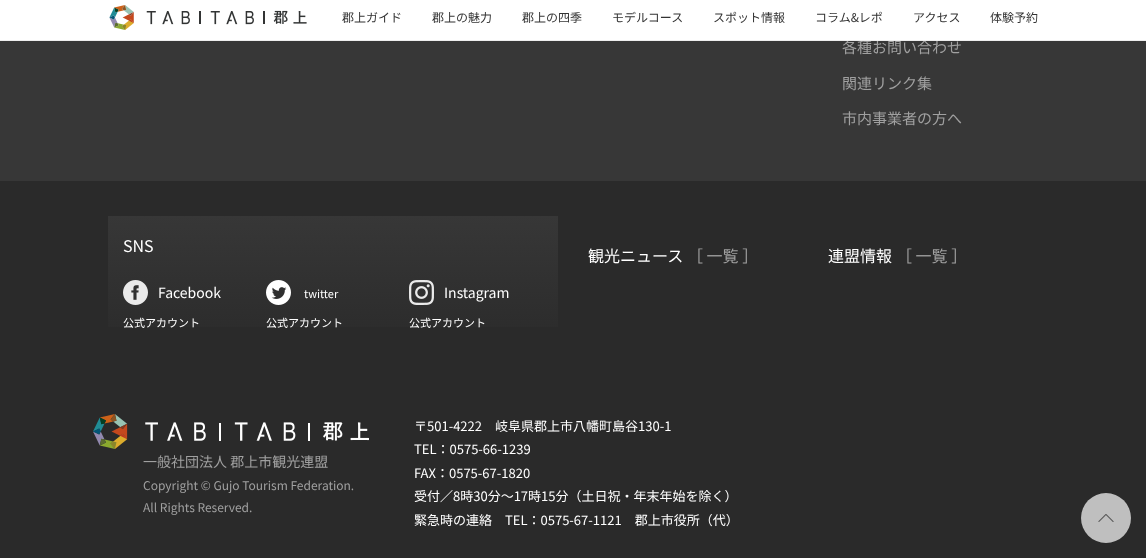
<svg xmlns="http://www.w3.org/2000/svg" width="1146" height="558">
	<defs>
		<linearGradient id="g1" gradientUnits="userSpaceOnUse" x1="333" y1="216" x2="333" y2="354"><stop offset="0" stop-color="#373737" /><stop offset="1" stop-color="#2A2A2A" /></linearGradient>
	</defs>
	<rect width="100%" height="100%" fill="#373737" />
	<text x="842" y="53" font-family="Noto Sans JP" font-size="15" fill="#A0A0A0">各種お問い合わせ</text>
	<rect x="0" y="40" width="1146" height="1" fill="#EEEEEE" />
	<rect x="0" y="0" width="1146" height="40" fill="#FFFFFF" />
	<image x="109" y="5" width="198" height="25" href="assets/img1.png" />
	<g font-family="Noto Sans JP" font-size="12" fill="#333333">
		<text x="342" y="22">郡上ガイド</text>
		<text x="432" y="22">郡上の魅力</text>
		<text x="522" y="22">郡上の四季</text>
		<text x="612" y="22">モデルコース</text>
		<text x="713" y="22">スポット情報</text>
		<text x="815" y="22">コラム&amp;レポ</text>
		<text x="913" y="22">アクセス</text>
		<text x="990" y="22">体験予約</text>
	</g>
	<g font-family="Noto Sans JP" font-size="15" fill="#A0A0A0">
		<text x="842" y="89">関連リンク集</text>
		<text x="842" y="124">市内事業者の方へ</text>
	</g>
	<rect x="0" y="181" width="1146" height="377" fill="#2A2A2A" />
	<rect x="108" y="216" width="450" height="111" fill="url(#g1)" />
	<text x="123" y="252" font-family="Noto Sans JP" font-size="16" fill="#FFFFFF">SNS</text>
	<image x="123" y="280" width="25" height="25" href="assets/img2.png" />
	<text x="158" y="298" font-family="Noto Sans JP" font-size="14" fill="#FFFFFF">Facebook</text>
	<text x="123" y="327" font-family="Noto Sans JP" font-size="11" fill="#FFFFFF">公式アカウント</text>
	<image x="266" y="280" width="25" height="25" href="assets/img3.png" />
	<g font-family="Noto Sans JP" font-size="11" fill="#FFFFFF">
		<text x="304" y="298">twitter</text>
		<text x="266" y="327">公式アカウント</text>
	</g>
	<image x="409" y="280" width="25" height="25" href="assets/img4.png" />
	<text x="444" y="298" font-family="Noto Sans JP" font-size="14" fill="#FFFFFF">Instagram</text>
	<text x="409" y="327" font-family="Noto Sans JP" font-size="11" fill="#FFFFFF">公式アカウント</text>
	<text x="588" y="262" font-family="Noto Sans JP" font-size="16" fill="#FFFFFF">観光ニュース</text>
	<text x="687" y="262" font-family="Noto Sans JP" font-size="16" fill="#A0A0A0">［ 一覧 ］</text>
	<text x="828" y="262" font-family="Noto Sans JP" font-size="16" fill="#FFFFFF">連盟情報</text>
	<text x="896" y="262" font-family="Noto Sans JP" font-size="16" fill="#A0A0A0">［ 一覧 ］</text>
	<image x="93" y="414" width="276" height="35" href="assets/img5.png" />
	<text x="143" y="467" font-family="Noto Sans JP" font-size="14" fill="#A0A0A0">一般社団法人 郡上市観光連盟</text>
	<g font-family="Noto Sans JP" font-size="12" fill="#A0A0A0">
		<text x="143" y="490">Copyright © Gujo Tourism Federation.</text>
		<text x="143" y="512">All Rights Reserved.</text>
	</g>
	<g font-family="Noto Sans JP" font-size="13" fill="#FFFFFF">
		<text x="414" y="431">〒501-4222　岐阜県郡上市八幡町島谷130-1</text>
		<text x="414" y="454">TEL：0575-66-1239</text>
		<text x="414" y="478">FAX：0575-67-1820</text>
		<text x="414" y="501">受付／8時30分～17時15分（土日祝・年末年始を除く）</text>
		<text x="414" y="525">緊急時の連絡　TEL：0575-67-1121　郡上市役所（代）</text>
	</g>
	<circle cx="1106" cy="518" r="25" fill="#BFBFBF" />
	<image x="1098" y="514" width="16" height="8" href="assets/img6.png" />
</svg>
